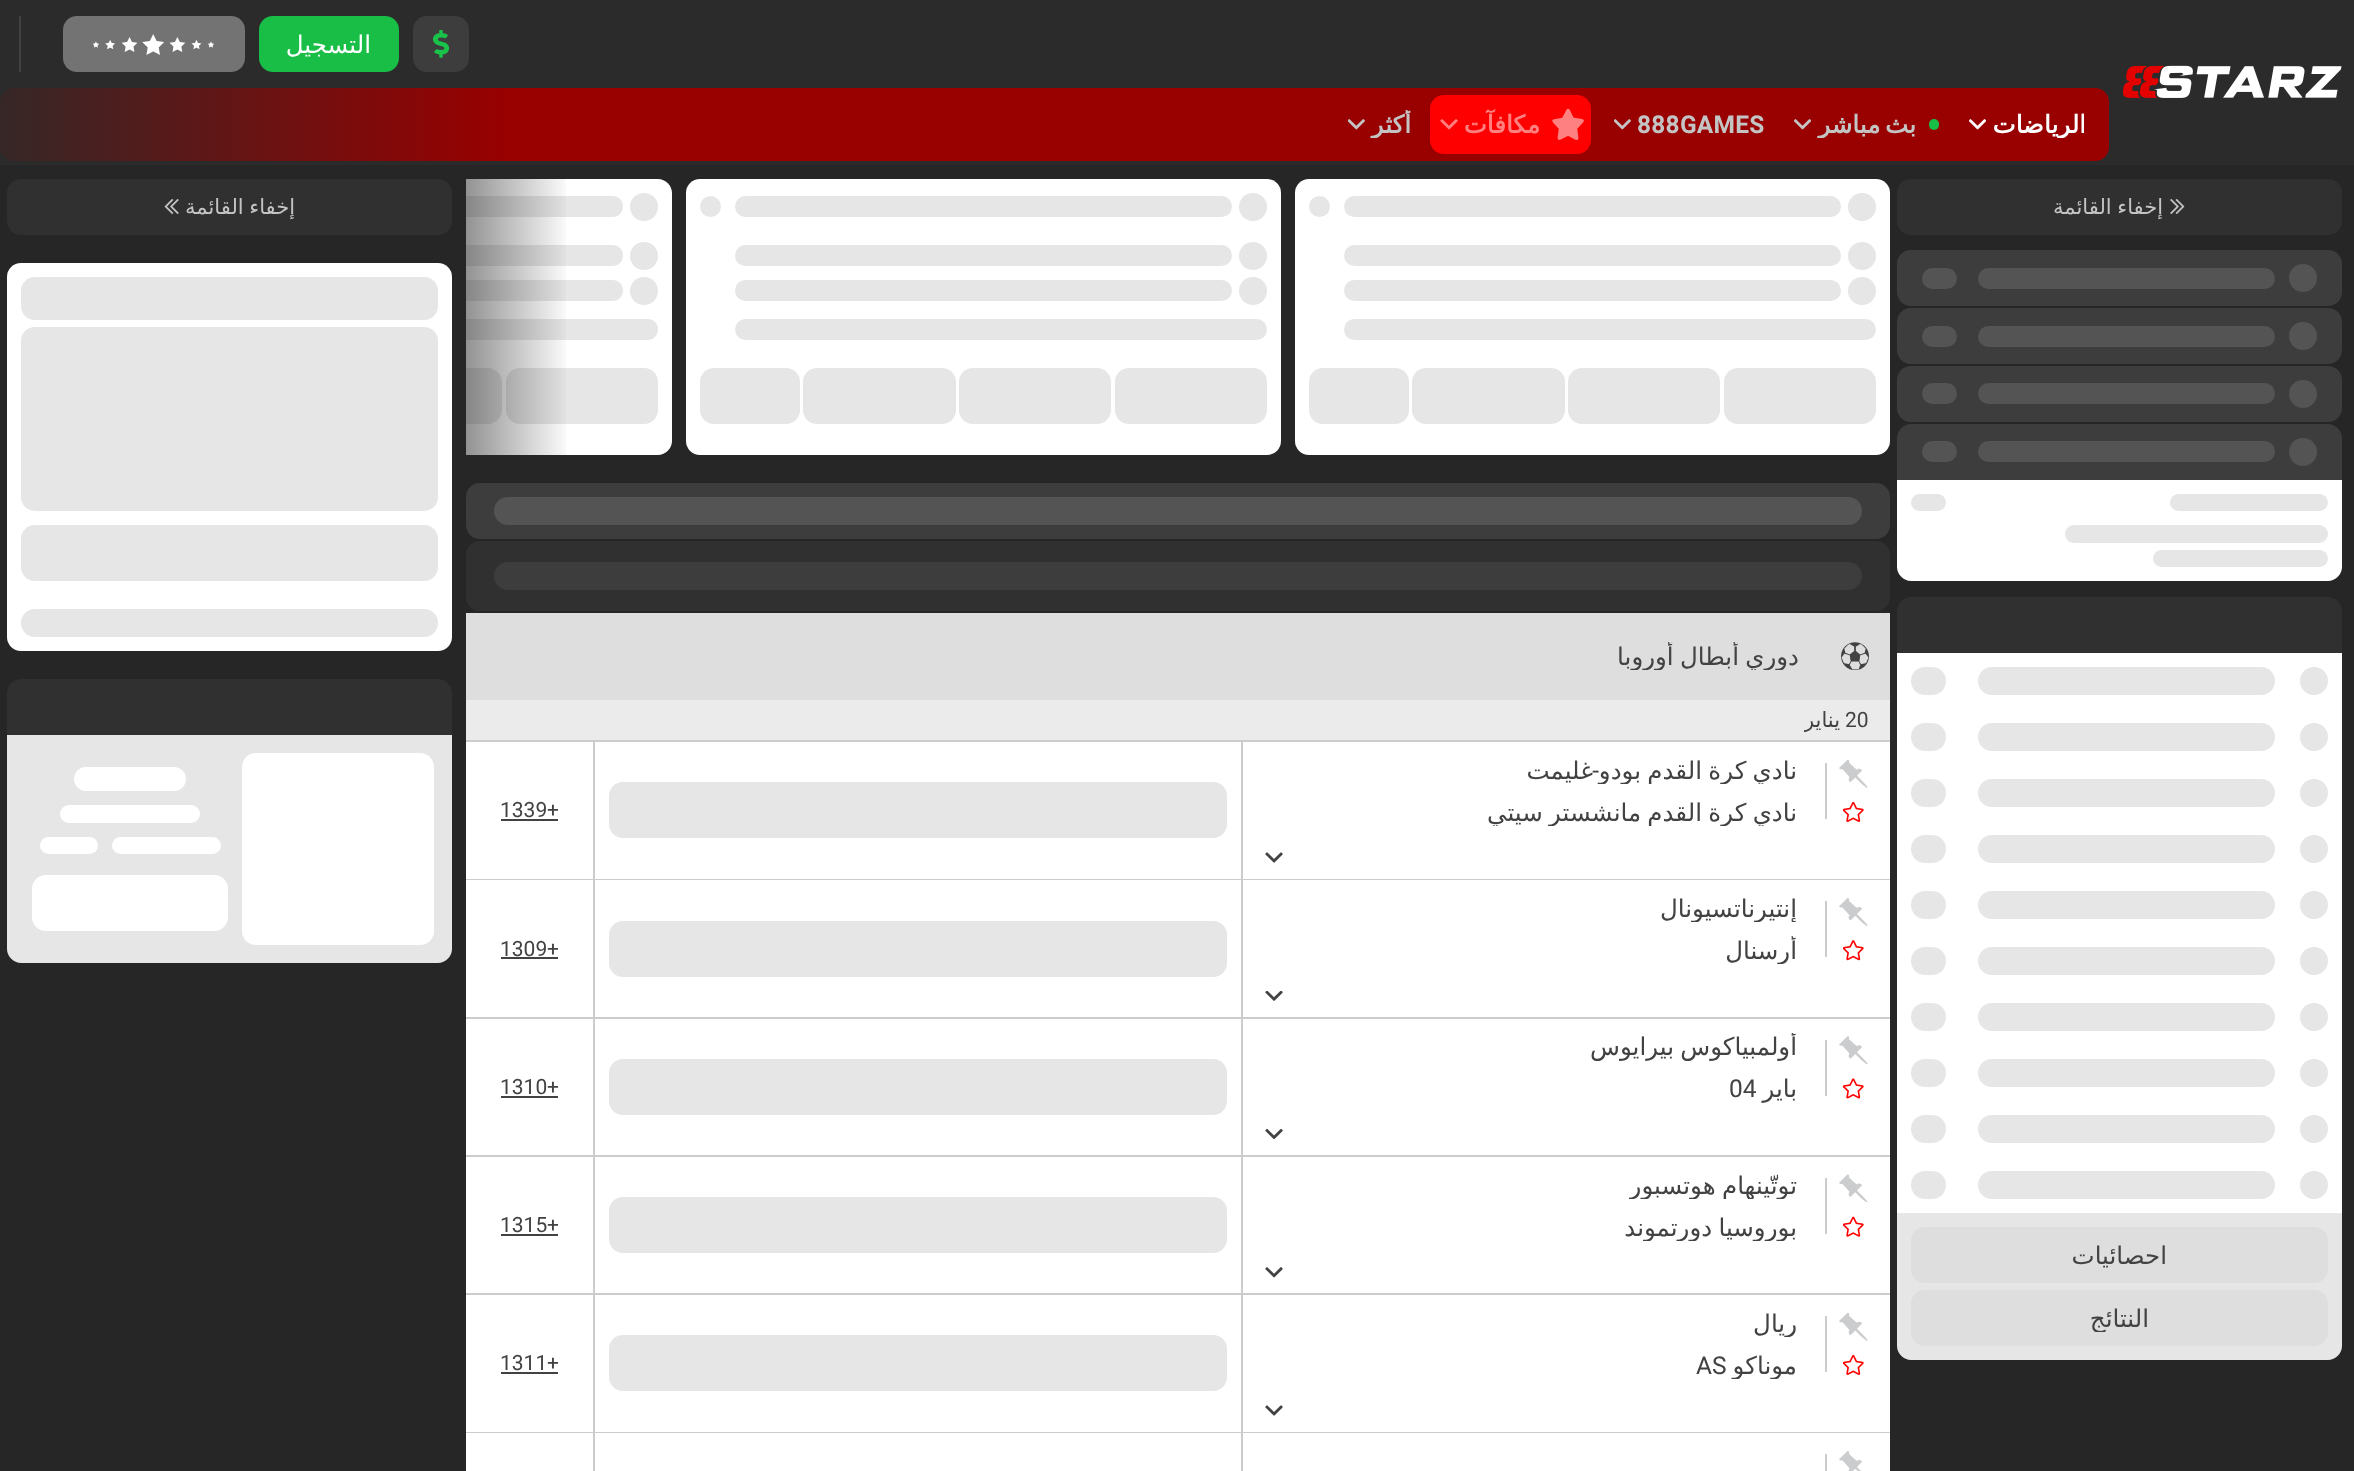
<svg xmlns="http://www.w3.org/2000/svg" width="2354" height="1471">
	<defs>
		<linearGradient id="g1" gradientUnits="userSpaceOnUse" x1="0" y1="124" x2="2109" y2="124"><stop offset="0" stop-color="#362727" /><stop offset="0.24" stop-color="#990000" /></linearGradient>
		<clipPath id="clip1"><rect x="1992" y="110" width="92" height="28" /></clipPath>
		<clipPath id="clip2"><rect x="1817" y="110" width="99" height="28" /></clipPath>
		<clipPath id="clip3"><rect x="1370" y="110" width="41" height="28" /></clipPath>
		<clipPath id="clip4"><rect x="2090" y="1304" width="59" height="28" /></clipPath>
		<linearGradient id="g2" gradientUnits="userSpaceOnUse" x1="571" y1="324" x2="466" y2="324"><stop offset="0" stop-color="#262626" stop-opacity="0" /><stop offset="1" stop-color="#262626" stop-opacity="0.5" /></linearGradient>
		<clipPath id="clip5"><rect x="1617" y="642" width="182" height="28" /></clipPath>
		<clipPath id="clip6"><rect x="1804" y="709" width="65" height="24" /></clipPath>
		<clipPath id="clip7"><rect x="1526" y="756" width="271" height="28" /></clipPath>
		<clipPath id="clip8"><rect x="1488" y="798" width="309" height="28" /></clipPath>
		<clipPath id="clip9"><rect x="1661" y="894" width="136" height="28" /></clipPath>
		<clipPath id="clip10"><rect x="1726" y="936" width="71" height="28" /></clipPath>
		<clipPath id="clip11"><rect x="1591" y="1033" width="206" height="28" /></clipPath>
		<clipPath id="clip12"><rect x="1629" y="1171" width="168" height="28" /></clipPath>
		<clipPath id="clip13"><rect x="1624" y="1213" width="173" height="28" /></clipPath>
		<clipPath id="clip14"><rect x="1754" y="1309" width="43" height="28" /></clipPath>
		<clipPath id="clip15"><rect x="1696" y="1351" width="101" height="28" /></clipPath>
	</defs>
	<rect width="100%" height="100%" fill="#262626" />
	<rect x="0" y="0" width="2354" height="165" fill="#2B2B2B" />
	<rect x="413" y="16" width="56" height="56" rx="14" fill="#3D3D3D" />
	<image x="432" y="30" width="17" height="28" href="assets/img1.png" />
	<rect x="259" y="16" width="140" height="56" rx="14" fill="#19BE47" />
	<text x="371" y="53" font-family="DejaVu Sans" font-size="24.5" direction="rtl" fill="#FFFFFF">التسجيل</text>
	<rect x="63" y="16" width="182" height="56" rx="14" fill="#737373" />
	<image x="92" y="34" width="123" height="21" href="assets/img2.png" />
	<rect x="19" y="16" width="2" height="56" fill="#424242" />
	<image x="2123" y="65" width="219" height="33" href="assets/img3.png" />
	<rect x="0" y="88" width="2109" height="73" rx="14" fill="url(#g1)" />
	<g clip-path="url(#clip1)">
		<text x="2086" y="133" font-family="DejaVu Sans" font-size="24.5" font-weight="700" letter-spacing="0.25" direction="rtl" fill="#FFFFFF">الرياضات</text>
	</g>
	<image x="1969" y="119" width="17" height="11" href="assets/img4.png" />
	<rect x="1929" y="119" width="10" height="11" rx="5" fill="#19BE47" />
	<g clip-path="url(#clip2)">
		<text x="1916" y="133" word-spacing="-3" font-family="DejaVu Sans" font-size="24.5" font-weight="700" letter-spacing="0.25" direction="rtl" fill="#C4C4C4">بث مباشر</text>
	</g>
	<image x="1794" y="119" width="17" height="11" href="assets/img5.png" />
	<text x="1637" y="133" font-family="Roboto" font-size="24.5" font-weight="700" letter-spacing="0.25" fill="#C4C4C4">888GAMES</text>
	<image x="1614" y="119" width="17" height="11" href="assets/img6.png" />
	<rect x="1430" y="95" width="161" height="59" rx="14" fill="#FF0000" />
	<image x="1552" y="109" width="32" height="31" href="assets/img7.png" />
	<text x="1540" y="133" font-family="DejaVu Sans" font-size="24.5" font-weight="700" letter-spacing="0.25" direction="rtl" fill="#FF8080">مكافآت</text>
	<image x="1440" y="119" width="18" height="11" href="assets/img8.png" />
	<g clip-path="url(#clip3)">
		<text x="1411" y="133" font-family="DejaVu Sans" font-size="24.5" font-weight="700" letter-spacing="0.25" direction="rtl" fill="#C4C4C4">أكثر</text>
	</g>
	<image x="1348" y="119" width="17" height="11" href="assets/img6.png" />
	<rect x="1897" y="179" width="445" height="56" rx="14" fill="#303030" />
	<image x="2170" y="199" width="15" height="15" href="assets/img9.png" />
	<text x="2163" y="214" word-spacing="-1" font-family="DejaVu Sans" font-size="21" direction="rtl" fill="#C4C4C4">إخفاء القائمة</text>
	<rect x="1897" y="250" width="445" height="56" rx="14" fill="#3D3D3D" />
	<circle cx="2303" cy="278" r="14" fill="#545454" />
	<rect x="1978" y="268" width="297" height="21" rx="10.5" fill="#545454" />
	<rect x="1922" y="268" width="35" height="21" rx="10.5" fill="#545454" />
	<rect x="1897" y="308" width="445" height="56" rx="14" fill="#3D3D3D" />
	<circle cx="2303" cy="336" r="14" fill="#545454" />
	<rect x="1978" y="326" width="297" height="21" rx="10.5" fill="#545454" />
	<rect x="1922" y="326" width="35" height="21" rx="10.5" fill="#545454" />
	<rect x="1897" y="366" width="445" height="56" rx="14" fill="#3D3D3D" />
	<circle cx="2303" cy="394" r="14" fill="#545454" />
	<rect x="1978" y="383" width="297" height="21" rx="10.5" fill="#545454" />
	<rect x="1922" y="383" width="35" height="21" rx="10.5" fill="#545454" />
	<path d="M1911 424H2328C2335.5 424 2342 430.5 2342 438V480H1897V438C1897 430.5 1903.5 424 1911 424Z" fill="#3D3D3D" />
	<circle cx="2303" cy="452" r="14" fill="#545454" />
	<rect x="1978" y="441" width="297" height="21" rx="10.5" fill="#545454" />
	<rect x="1922" y="441" width="35" height="21" rx="10.5" fill="#545454" />
	<path d="M1897 480H2342V567C2342 574.5 2335.5 581 2328 581H1911C1903.5 581 1897 574.5 1897 567Z" fill="#FFFFFF" />
	<rect x="2170" y="494" width="158" height="17" rx="8.5" fill="#E6E6E6" />
	<rect x="2065" y="525" width="263" height="18" rx="9" fill="#E6E6E6" />
	<rect x="2153" y="550" width="175" height="17" rx="8.5" fill="#E6E6E6" />
	<rect x="1911" y="494" width="35" height="17" rx="8.5" fill="#E6E6E6" />
	<path d="M1911 597H2328C2335.5 597 2342 603.5 2342 611V653H1897V611C1897 603.5 1903.5 597 1911 597Z" fill="#303030" />
	<rect x="1897" y="653" width="445" height="560" fill="#FFFFFF" />
	<circle cx="2314" cy="681" r="14" fill="#E6E6E6" />
	<rect x="1978" y="667" width="297" height="28" rx="14" fill="#E6E6E6" />
	<rect x="1911" y="667" width="35" height="28" rx="14" fill="#E6E6E6" />
	<circle cx="2314" cy="737" r="14" fill="#E6E6E6" />
	<rect x="1978" y="723" width="297" height="28" rx="14" fill="#E6E6E6" />
	<rect x="1911" y="723" width="35" height="28" rx="14" fill="#E6E6E6" />
	<circle cx="2314" cy="793" r="14" fill="#E6E6E6" />
	<rect x="1978" y="779" width="297" height="28" rx="14" fill="#E6E6E6" />
	<rect x="1911" y="779" width="35" height="28" rx="14" fill="#E6E6E6" />
	<circle cx="2314" cy="849" r="14" fill="#E6E6E6" />
	<rect x="1978" y="835" width="297" height="28" rx="14" fill="#E6E6E6" />
	<rect x="1911" y="835" width="35" height="28" rx="14" fill="#E6E6E6" />
	<circle cx="2314" cy="905" r="14" fill="#E6E6E6" />
	<rect x="1978" y="891" width="297" height="28" rx="14" fill="#E6E6E6" />
	<rect x="1911" y="891" width="35" height="28" rx="14" fill="#E6E6E6" />
	<circle cx="2314" cy="961" r="14" fill="#E6E6E6" />
	<rect x="1978" y="947" width="297" height="28" rx="14" fill="#E6E6E6" />
	<rect x="1911" y="947" width="35" height="28" rx="14" fill="#E6E6E6" />
	<circle cx="2314" cy="1017" r="14" fill="#E6E6E6" />
	<rect x="1978" y="1003" width="297" height="28" rx="14" fill="#E6E6E6" />
	<rect x="1911" y="1003" width="35" height="28" rx="14" fill="#E6E6E6" />
	<circle cx="2314" cy="1073" r="14" fill="#E6E6E6" />
	<rect x="1978" y="1059" width="297" height="28" rx="14" fill="#E6E6E6" />
	<rect x="1911" y="1059" width="35" height="28" rx="14" fill="#E6E6E6" />
	<circle cx="2314" cy="1129" r="14" fill="#E6E6E6" />
	<rect x="1978" y="1115" width="297" height="28" rx="14" fill="#E6E6E6" />
	<rect x="1911" y="1115" width="35" height="28" rx="14" fill="#E6E6E6" />
	<circle cx="2314" cy="1185" r="14" fill="#E6E6E6" />
	<rect x="1978" y="1171" width="297" height="28" rx="14" fill="#E6E6E6" />
	<rect x="1911" y="1171" width="35" height="28" rx="14" fill="#E6E6E6" />
	<path d="M1897 1213H2342V1346C2342 1353.5 2335.5 1360 2328 1360H1911C1903.5 1360 1897 1353.5 1897 1346Z" fill="#E6E6E6" />
	<rect x="1911" y="1227" width="417" height="56" rx="14" fill="#DEDEDE" />
	<text x="2167" y="1264" font-family="DejaVu Sans" font-size="24.5" direction="rtl" fill="#424242">احصائيات</text>
	<rect x="1911" y="1290" width="417" height="56" rx="14" fill="#DEDEDE" />
	<g clip-path="url(#clip4)">
		<text x="2149" y="1327" font-family="DejaVu Sans" font-size="24.5" direction="rtl" fill="#424242">النتائج</text>
	</g>
	<path d="M466 179H658C665.5 179 672 185.5 672 193V441C672 448.5 665.5 455 658 455H466Z" fill="#FFFFFF" />
	<circle cx="644" cy="207" r="14" fill="#E6E6E6" />
	<path d="M466 196H612.5C618.5 196 623 200.5 623 206.5C623 212.5 618.5 217 612.5 217H466Z" fill="#E6E6E6" />
	<circle cx="644" cy="256" r="14" fill="#E6E6E6" />
	<path d="M466 245H612.5C618.5 245 623 249.5 623 255.5C623 261.5 618.5 266 612.5 266H466Z" fill="#E6E6E6" />
	<circle cx="644" cy="291" r="14" fill="#E6E6E6" />
	<path d="M466 280H612.5C618.5 280 623 284.5 623 290.5C623 296.5 618.5 301 612.5 301H466Z" fill="#E6E6E6" />
	<path d="M466 319H647.5C653.5 319 658 323.5 658 329.5C658 335.5 653.5 340 647.5 340H466Z" fill="#E6E6E6" />
	<rect x="506" y="368" width="152" height="56" rx="14" fill="#E6E6E6" />
	<path d="M466 368H488C495.5 368 502 374.5 502 382V410C502 417.5 495.5 424 488 424H466Z" fill="#E6E6E6" />
	<rect x="1295" y="179" width="595" height="276" rx="14" fill="#FFFFFF" />
	<circle cx="1862" cy="207" r="14" fill="#E6E6E6" />
	<rect x="1344" y="196" width="497" height="21" rx="10.5" fill="#E6E6E6" />
	<circle cx="1862" cy="256" r="14" fill="#E6E6E6" />
	<rect x="1344" y="245" width="497" height="21" rx="10.5" fill="#E6E6E6" />
	<circle cx="1862" cy="291" r="14" fill="#E6E6E6" />
	<rect x="1344" y="280" width="497" height="21" rx="10.5" fill="#E6E6E6" />
	<circle cx="1319.5" cy="206.5" r="10.5" fill="#E6E6E6" />
	<rect x="1344" y="319" width="532" height="21" rx="10.5" fill="#E6E6E6" />
	<rect x="1724" y="368" width="152" height="56" rx="14" fill="#E6E6E6" />
	<rect x="1568" y="368" width="152" height="56" rx="14" fill="#E6E6E6" />
	<rect x="1412" y="368" width="153" height="56" rx="14" fill="#E6E6E6" />
	<rect x="1309" y="368" width="100" height="56" rx="14" fill="#E6E6E6" />
	<rect x="686" y="179" width="595" height="276" rx="14" fill="#FFFFFF" />
	<circle cx="1253" cy="207" r="14" fill="#E6E6E6" />
	<rect x="735" y="196" width="497" height="21" rx="10.5" fill="#E6E6E6" />
	<circle cx="1253" cy="256" r="14" fill="#E6E6E6" />
	<rect x="735" y="245" width="497" height="21" rx="10.5" fill="#E6E6E6" />
	<circle cx="1253" cy="291" r="14" fill="#E6E6E6" />
	<rect x="735" y="280" width="497" height="21" rx="10.5" fill="#E6E6E6" />
	<circle cx="710.5" cy="206.5" r="10.5" fill="#E6E6E6" />
	<rect x="735" y="319" width="532" height="21" rx="10.5" fill="#E6E6E6" />
	<rect x="1115" y="368" width="152" height="56" rx="14" fill="#E6E6E6" />
	<rect x="959" y="368" width="152" height="56" rx="14" fill="#E6E6E6" />
	<rect x="803" y="368" width="153" height="56" rx="14" fill="#E6E6E6" />
	<rect x="700" y="368" width="100" height="56" rx="14" fill="#E6E6E6" />
	<rect x="466" y="179" width="100" height="276" fill="url(#g2)" />
	<rect x="466" y="483" width="1424" height="56" rx="14" fill="#3D3D3D" />
	<rect x="494" y="497" width="1368" height="28" rx="14" fill="#545454" />
	<rect x="466" y="541" width="1424" height="70" rx="14" fill="#303030" />
	<rect x="494" y="562" width="1368" height="28" rx="14" fill="#3D3D3D" />
	<rect x="466" y="742" width="1424" height="690" fill="#FFFFFF" />
	<rect x="1276" y="613" width="614" height="87" fill="#DEDEDE" />
	<image x="1841" y="642" width="28" height="28" href="assets/img10.png" />
	<g clip-path="url(#clip5)">
		<text x="1799" y="665" word-spacing="-1.5" font-family="DejaVu Sans" font-size="24.5" direction="rtl" fill="#424242">دوري أبطال أوروبا</text>
	</g>
	<rect x="466" y="613" width="810" height="87" fill="#DEDEDE" />
	<rect x="466" y="700" width="1424" height="40" fill="#EBEBEB" />
	<rect x="466" y="740" width="1424" height="2" fill="#CBCCCD" />
	<text x="1845" y="727" font-family="Roboto" font-size="21" fill="#424242">20</text>
	<g clip-path="url(#clip6)">
		<text x="1840" y="727" font-family="DejaVu Sans" font-size="21" direction="rtl" fill="#424242">يناير</text>
	</g>
	<rect x="1243" y="879" width="647" height="1" fill="#CBCCCD" />
	<image x="1839" y="760" width="29" height="28" href="assets/img11.png" />
	<rect x="1825" y="763" width="2" height="56" fill="#CBCCCD" />
	<image x="1843" y="802" width="21" height="20" href="assets/img12.png" />
	<text x="1599" y="779" font-family="Roboto" font-size="24.5" direction="rtl" fill="#424242">-</text>
	<g clip-path="url(#clip7)">
		<text x="1797" y="779" word-spacing="-1.5" font-family="DejaVu Sans" font-size="24.5" direction="rtl" fill="#424242">نادي كرة القدم بودو</text>
	</g>
	<text x="1593" y="779" font-family="DejaVu Sans" font-size="24.5" direction="rtl" fill="#424242">غليمت</text>
	<g clip-path="url(#clip8)">
		<text x="1797" y="821" word-spacing="-1.5" font-family="DejaVu Sans" font-size="24.5" direction="rtl" fill="#424242">نادي كرة القدم مانشستر سيتي</text>
	</g>
	<image x="1265" y="852" width="18" height="11" href="assets/img13.png" />
	<rect x="1241" y="742" width="2" height="729" fill="#CBCCCD" />
	<rect x="595" y="879" width="648" height="1" fill="#CBCCCD" />
	<rect x="609" y="782" width="618" height="56" rx="14" fill="#E6E6E6" />
	<rect x="593" y="742" width="2" height="729" fill="#CBCCCD" />
	<rect x="466" y="879" width="129" height="1" fill="#CBCCCD" />
	<rect x="501" y="819" width="57" height="2" fill="#424242" />
	<g font-family="Roboto" font-size="21" fill="#424242">
		<text x="547" y="817">+</text>
		<text x="500" y="817">1339</text>
	</g>
	<rect x="466" y="1017" width="1424" height="2" fill="#CBCCCD" />
	<image x="1839" y="898" width="29" height="28" href="assets/img14.png" />
	<rect x="1825" y="901" width="2" height="56" fill="#CBCCCD" />
	<image x="1843" y="940" width="21" height="21" href="assets/img15.png" />
	<g clip-path="url(#clip9)">
		<text x="1797" y="917" font-family="DejaVu Sans" font-size="24.5" direction="rtl" fill="#424242">إنتيرناتسيونال</text>
	</g>
	<g clip-path="url(#clip10)">
		<text x="1797" y="959" font-family="DejaVu Sans" font-size="24.5" direction="rtl" fill="#424242">أرسنال</text>
	</g>
	<image x="1265" y="991" width="18" height="10" href="assets/img16.png" />
	<rect x="609" y="921" width="618" height="56" rx="14" fill="#E6E6E6" />
	<rect x="501" y="957" width="57" height="2" fill="#424242" />
	<g font-family="Roboto" font-size="21" fill="#424242">
		<text x="547" y="956">+</text>
		<text x="500" y="956">1309</text>
	</g>
	<rect x="466" y="1155" width="1424" height="2" fill="#CBCCCD" />
	<image x="1839" y="1036" width="29" height="28" href="assets/img17.png" />
	<rect x="1825" y="1040" width="2" height="56" fill="#CBCCCD" />
	<image x="1843" y="1078" width="21" height="21" href="assets/img18.png" />
	<g clip-path="url(#clip11)">
		<text x="1797" y="1055" word-spacing="-1.5" font-family="DejaVu Sans" font-size="24.5" direction="rtl" fill="#424242">أولمبياكوس بيرايوس</text>
	</g>
	<text x="1797" y="1097" font-family="DejaVu Sans" font-size="24.5" direction="rtl" fill="#424242">باير</text>
	<text x="1729" y="1097" font-family="Roboto" font-size="24.5" fill="#424242">04</text>
	<image x="1265" y="1129" width="18" height="10" href="assets/img19.png" />
	<rect x="609" y="1059" width="618" height="56" rx="14" fill="#E6E6E6" />
	<rect x="501" y="1096" width="57" height="2" fill="#424242" />
	<g font-family="Roboto" font-size="21" fill="#424242">
		<text x="547" y="1094">+</text>
		<text x="500" y="1094">1310</text>
	</g>
	<rect x="466" y="1293" width="1424" height="2" fill="#CBCCCD" />
	<image x="1839" y="1174" width="29" height="28" href="assets/img20.png" />
	<rect x="1825" y="1178" width="2" height="56" fill="#CBCCCD" />
	<image x="1843" y="1216" width="21" height="21" href="assets/img21.png" />
	<g clip-path="url(#clip12)">
		<text x="1797" y="1194" word-spacing="-1.5" font-family="DejaVu Sans" font-size="24.5" direction="rtl" fill="#424242">توتّينهام هوتسبور</text>
	</g>
	<g clip-path="url(#clip13)">
		<text x="1797" y="1236" word-spacing="-1.5" font-family="DejaVu Sans" font-size="24.5" direction="rtl" fill="#424242">بوروسيا دورتموند</text>
	</g>
	<image x="1265" y="1267" width="18" height="11" href="assets/img22.png" />
	<rect x="609" y="1197" width="618" height="56" rx="14" fill="#E6E6E6" />
	<rect x="501" y="1234" width="57" height="2" fill="#424242" />
	<g font-family="Roboto" font-size="21" fill="#424242">
		<text x="547" y="1232">+</text>
		<text x="500" y="1232">1315</text>
	</g>
	<rect x="466" y="1432" width="1424" height="1" fill="#CBCCCD" />
	<image x="1839" y="1313" width="29" height="28" href="assets/img11.png" />
	<rect x="1825" y="1316" width="2" height="56" fill="#CBCCCD" />
	<image x="1843" y="1355" width="21" height="20" href="assets/img12.png" />
	<g clip-path="url(#clip14)">
		<text x="1797" y="1332" font-family="DejaVu Sans" font-size="24.5" direction="rtl" fill="#424242">ريال</text>
	</g>
	<g clip-path="url(#clip15)">
		<text x="1797" y="1374" font-family="DejaVu Sans" font-size="24.5" direction="rtl" fill="#424242">موناكو</text>
	</g>
	<text x="1696" y="1374" font-family="Roboto" font-size="24.5" fill="#424242">AS</text>
	<image x="1265" y="1405" width="18" height="11" href="assets/img13.png" />
	<rect x="609" y="1335" width="618" height="56" rx="14" fill="#E6E6E6" />
	<rect x="501" y="1372" width="57" height="2" fill="#424242" />
	<g font-family="Roboto" font-size="21" fill="#424242">
		<text x="547" y="1370">+</text>
		<text x="500" y="1370">1311</text>
	</g>
	<rect x="1243" y="1433" width="647" height="38" fill="#FFFFFF" />
	<image x="1839" y="1451" width="23" height="20" href="assets/img23.png" />
	<rect x="1825" y="1454" width="2" height="17" fill="#CBCCCD" />
	<rect x="595" y="1433" width="646" height="38" fill="#FFFFFF" />
	<rect x="466" y="1433" width="127" height="38" fill="#FFFFFF" />
	<rect x="7" y="179" width="445" height="56" rx="14" fill="#303030" />
	<text x="295" y="214" word-spacing="-1" font-family="DejaVu Sans" font-size="21" direction="rtl" fill="#C4C4C4">إخفاء القائمة</text>
	<image x="164" y="199" width="15" height="15" href="assets/img24.png" />
	<rect x="7" y="263" width="445" height="388" rx="14" fill="#FFFFFF" />
	<rect x="21" y="277" width="417" height="43" rx="14" fill="#E6E6E6" />
	<rect x="21" y="327" width="417" height="184" rx="14" fill="#E6E6E6" />
	<rect x="21" y="525" width="417" height="56" rx="14" fill="#E6E6E6" />
	<rect x="21" y="609" width="417" height="28" rx="14" fill="#E6E6E6" />
	<path d="M21 679H438C445.5 679 452 685.5 452 693V735H7V693C7 685.5 13.5 679 21 679Z" fill="#303030" />
	<path d="M7 735H452V949C452 956.5 445.5 963 438 963H21C13.5 963 7 956.5 7 949Z" fill="#E6E6E6" />
	<rect x="242" y="753" width="192" height="192" rx="14" fill="#FFFFFF" />
	<rect x="74" y="767" width="112" height="24" rx="12" fill="#FFFFFF" />
	<rect x="60" y="805" width="140" height="18" rx="9" fill="#FFFFFF" />
	<rect x="112" y="837" width="109" height="17" rx="8.5" fill="#FFFFFF" />
	<rect x="40" y="837" width="58" height="17" rx="8.5" fill="#FFFFFF" />
	<rect x="32" y="875" width="196" height="56" rx="14" fill="#FFFFFF" />
</svg>
